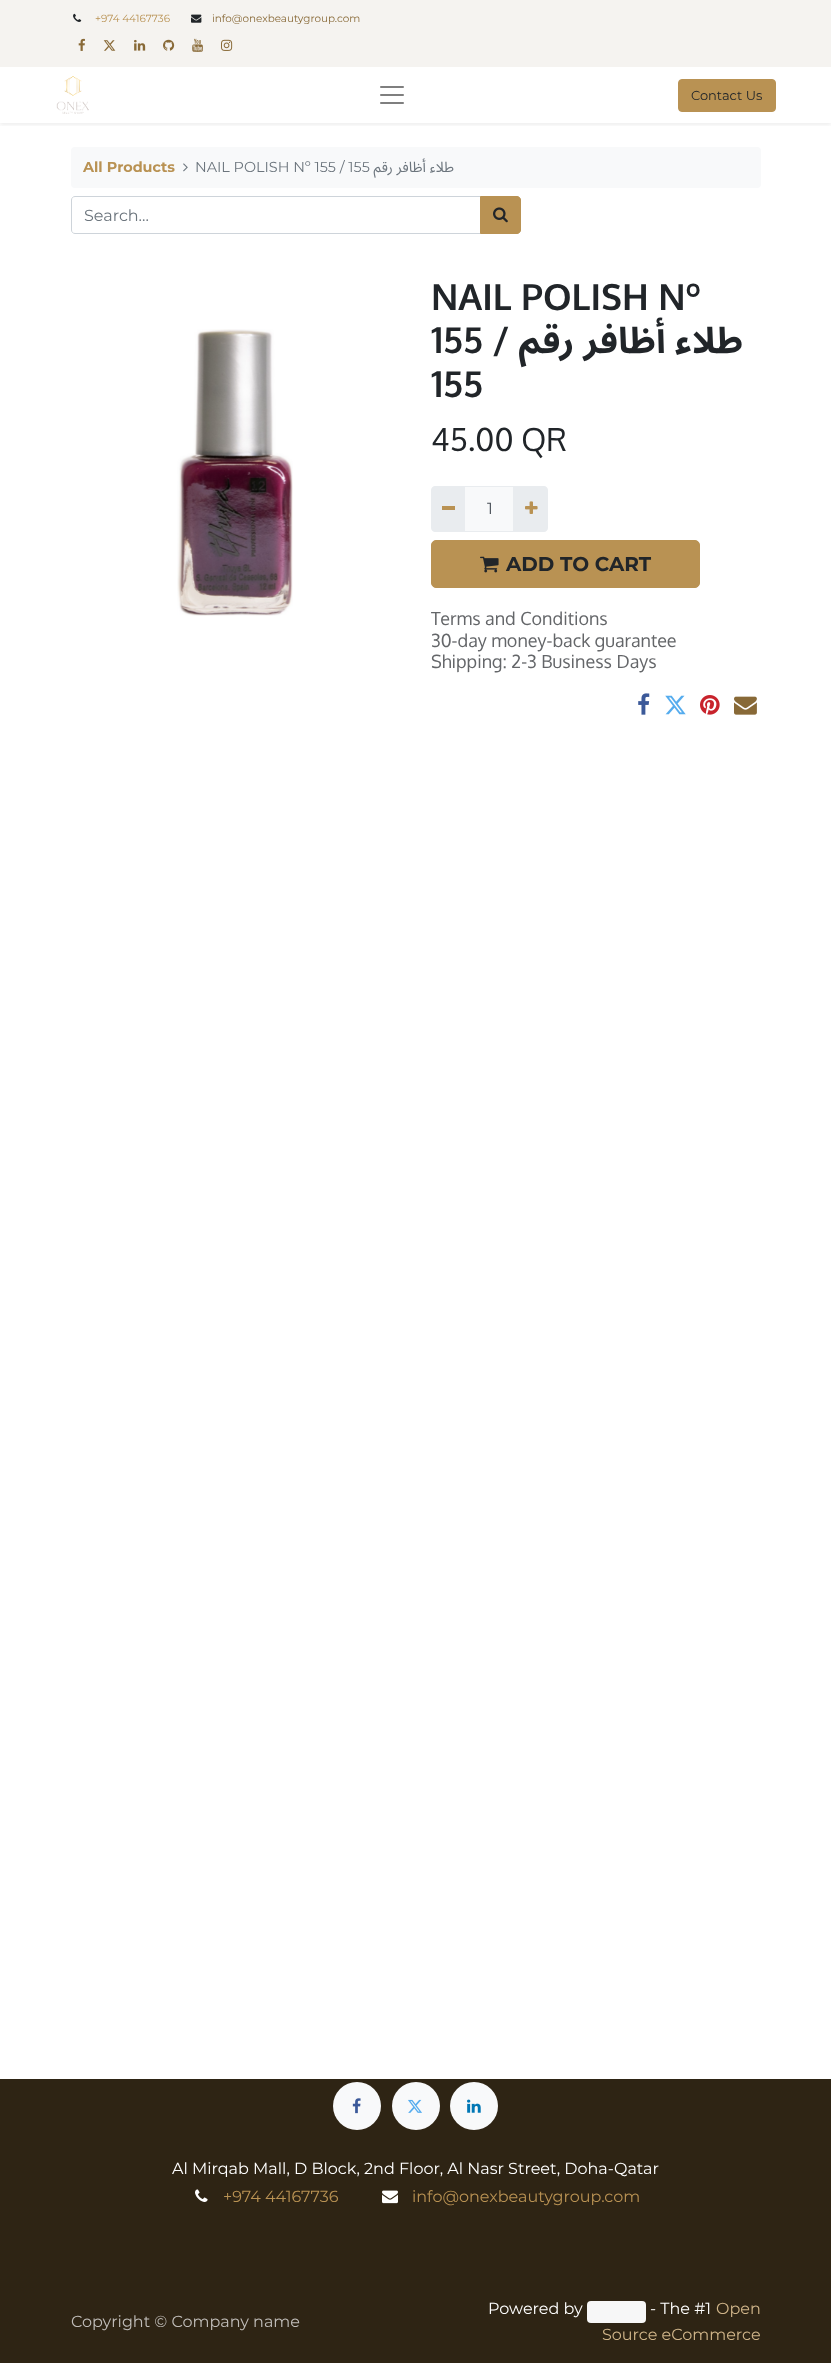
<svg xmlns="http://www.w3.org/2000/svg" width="831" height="2363">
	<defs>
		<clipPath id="clip1"><rect x="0" y="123" width="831" height="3" /></clipPath>
	</defs>
	<rect width="100%" height="100%" fill="#FFFFFF" />
	<rect x="0" y="0" width="831" height="67" fill="#F5F3F0" />
	<image x="73" y="13" width="9" height="9" href="assets/img1.png" />
	<text x="95" y="22" font-family="Montserrat" font-size="10.4" fill="#B99253">+974 44167736</text>
	<image x="191" y="14" width="11" height="9" href="assets/img2.png" />
	<text x="212" y="22" font-family="Montserrat" font-size="10.4" fill="#886937">info@onexbeautygroup.com</text>
	<image x="78" y="38" width="7" height="13" href="assets/img3.png" />
	<image x="103" y="40" width="13" height="11" href="assets/img4.png" />
	<image x="134" y="39" width="12" height="12" href="assets/img5.png" />
	<image x="163" y="39" width="12" height="12" href="assets/img6.png" />
	<image x="192" y="38" width="11" height="14" href="assets/img7.png" />
	<image x="221" y="39" width="12" height="12" href="assets/img8.png" />
	<g clip-path="url(#clip1)">
		<rect x="0" y="69" width="831" height="56" fill="#000000" fill-opacity="0.07" filter="blur(2px)" />
	</g>
	<image x="56" y="76" width="33" height="38" href="assets/img9.png" />
	<image x="380" y="86" width="24" height="18" href="assets/img10.png" />
	<rect x="678.5" y="79.5" width="97" height="32" rx="3.5" fill="#B99253" stroke="#B99253" />
	<text x="691" y="100" font-family="Montserrat" font-size="13" fill="#212529">Contact Us</text>
	<rect x="71" y="147" width="690" height="41" rx="4" fill="#F8F9FA" />
	<text x="83" y="172" font-family="Montserrat" font-size="14.4" font-weight="700" fill="#B99253">All Products</text>
	<image x="183" y="163" width="5" height="9" href="assets/img11.png" />
	<text x="195" y="172" font-family="Montserrat" font-size="14.4" fill="#6C757D">NAIL POLISH Nº 155 / 155</text>
	<text x="454" y="172" font-family="Noto Sans Arabic" font-size="14.4" direction="rtl" fill="#6C757D">طلاء أظافر رقم</text>
	<path d="M75 196.5H480.5V233.5H75C73 233.5 71.5 232 71.5 230V200C71.5 198 73 196.5 75 196.5Z" fill="none" stroke="#CED4DA" />
	<text x="84" y="221" font-family="Montserrat" font-size="16" fill="#6C757D">Search...</text>
	<path d="M480.5 196.5H517C519 196.5 520.5 198 520.5 200V230C520.5 232 519 233.5 517 233.5H480.5Z" fill="#B99253" stroke="#B99253" />
	<image x="493" y="207" width="15" height="16" href="assets/img12.png" />
	<image x="177" y="329" width="116" height="287" href="assets/img13.png" />
	<g font-family="Oxygen" font-size="36" font-weight="700" fill="#212529">
		<text x="431" y="310">NAIL POLISH Nº</text>
		<text x="431" y="353">155 /</text>
	</g>
	<text x="743" y="353" font-family="Noto Sans Arabic" font-size="36" font-weight="700" direction="rtl" fill="#212529">طلاء أظافر رقم</text>
	<text x="431" y="397" font-family="Oxygen" font-size="36" font-weight="700" fill="#212529">155</text>
	<text x="431" y="451" font-family="Oxygen" font-size="31.5" fill="#212529">45.00 QR</text>
	<rect x="464.5" y="486.5" width="49" height="45" fill="#F8F9FA" stroke="#E9ECEF" />
	<path d="M435 486H465V532H435C433 532 431 530 431 528V490C431 488 433 486 435 486Z" fill="#E9ECEF" />
	<rect x="442" y="506" width="13" height="4" fill="#B99253" />
	<text x="487" y="514" font-family="Montserrat" font-size="16" fill="#495057">1</text>
	<path d="M513 486H544C546 486 548 488 548 490V528C548 530 546 532 544 532H513Z" fill="#E9ECEF" />
	<image x="525" y="501" width="13" height="13" href="assets/img14.png" />
	<rect x="431.5" y="540.5" width="268" height="47" rx="4.5" fill="#B99253" stroke="#B99253" />
	<image x="480" y="556" width="19" height="17" href="assets/img15.png" />
	<text x="506" y="571" font-family="Montserrat" font-size="20" font-weight="700" fill="#212529">ADD TO CART</text>
	<g font-family="Oxygen" font-size="18" fill="#646669">
		<text x="431" y="625">Terms and Conditions</text>
		<text x="431" y="647">30-day money-back guarantee</text>
		<text x="431" y="668">Shipping: 2-3 Business Days</text>
	</g>
	<image x="638" y="693" width="12" height="22" href="assets/img16.png" />
	<image x="665" y="695" width="21" height="20" href="assets/img17.png" />
	<image x="700" y="695" width="20" height="20" href="assets/img18.png" />
	<image x="734" y="696" width="23" height="19" href="assets/img19.png" />
	<rect x="0" y="2079" width="831" height="284" fill="#2E2414" />
	<circle cx="357" cy="2106" r="24" fill="#F8F9FA" />
	<image x="352" y="2098" width="9" height="16" href="assets/img20.png" />
	<circle cx="416" cy="2106" r="24" fill="#F8F9FA" />
	<image x="408" y="2099" width="14" height="14" href="assets/img21.png" />
	<circle cx="474" cy="2106" r="24" fill="#F8F9FA" />
	<image x="467" y="2099" width="14" height="14" href="assets/img22.png" />
	<text x="172" y="2174" font-family="Montserrat" font-size="16" fill="#FFFFFF">Al Mirqab Mall, D Block, 2nd Floor, Al Nasr Street, Doha-Qatar</text>
	<image x="195" y="2189" width="13" height="13" href="assets/img23.png" />
	<text x="223" y="2202" font-family="Montserrat" font-size="16" fill="#B99253">+974 44167736</text>
	<image x="382" y="2190" width="16" height="14" href="assets/img24.png" />
	<text x="412" y="2202" font-family="Montserrat" font-size="16" fill="#B99253">info@onexbeautygroup.com</text>
	<text x="71" y="2327" font-family="Montserrat" font-size="16" fill="#C0BDB9">Copyright © Company name</text>
	<text x="488" y="2314" font-family="Montserrat" font-size="16" fill="#FFFFFF">Powered by</text>
	<rect x="587" y="2301" width="59" height="22" rx="4" fill="#F7F7F7" />
	<text x="650" y="2314" font-family="Montserrat" font-size="16" fill="#FFFFFF">- The #1</text>
	<g font-family="Montserrat" font-size="16" fill="#CFB489">
		<text x="716" y="2314">Open</text>
		<text x="602" y="2340">Source eCommerce</text>
	</g>
</svg>
